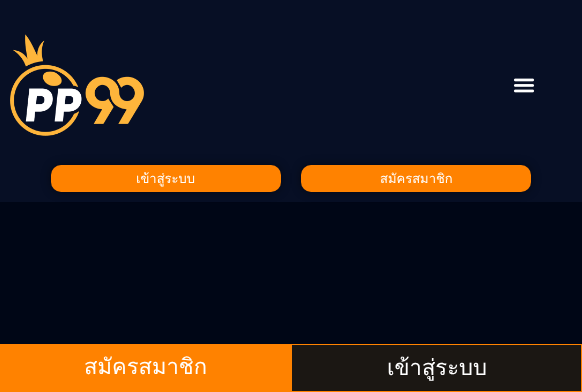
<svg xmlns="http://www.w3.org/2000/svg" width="582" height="392">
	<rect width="100%" height="100%" fill="#000616" />
	<rect x="0" y="0" width="582" height="202" fill="#070F25" />
	<image x="10" y="34" width="134" height="102" href="assets/img1.png" />
	<image x="513" y="78" width="22" height="15" href="assets/img2.png" />
	<rect x="51" y="165" width="230" height="27" rx="10" fill="#000000" fill-opacity="0.5" filter="blur(5px)" />
	<rect x="51" y="165" width="230" height="27" rx="10" fill="#FF8200" />
	<text x="136" y="183" font-family="Loma" font-size="13" fill="#FFFFFF">เข้าสู่ระบบ</text>
	<rect x="301" y="165" width="230" height="27" rx="10" fill="#000000" fill-opacity="0.5" filter="blur(5px)" />
	<rect x="301" y="165" width="230" height="27" rx="10" fill="#FF8200" />
	<text x="380" y="183" font-family="Loma" font-size="13" fill="#FFFFFF">สมัครสมาชิก</text>
	<rect x="0" y="344" width="291" height="48" fill="#FF8200" />
	<text x="84" y="374" font-family="Loma" font-size="22" fill="#FFFFFF">สมัครสมาชิก</text>
	<rect x="291.5" y="344.5" width="290" height="47" fill="#1B1713" stroke="#FF8200" />
	<text x="387" y="375" font-family="Loma" font-size="22" fill="#FFFFFF">เข้าสู่ระบบ</text>
</svg>
